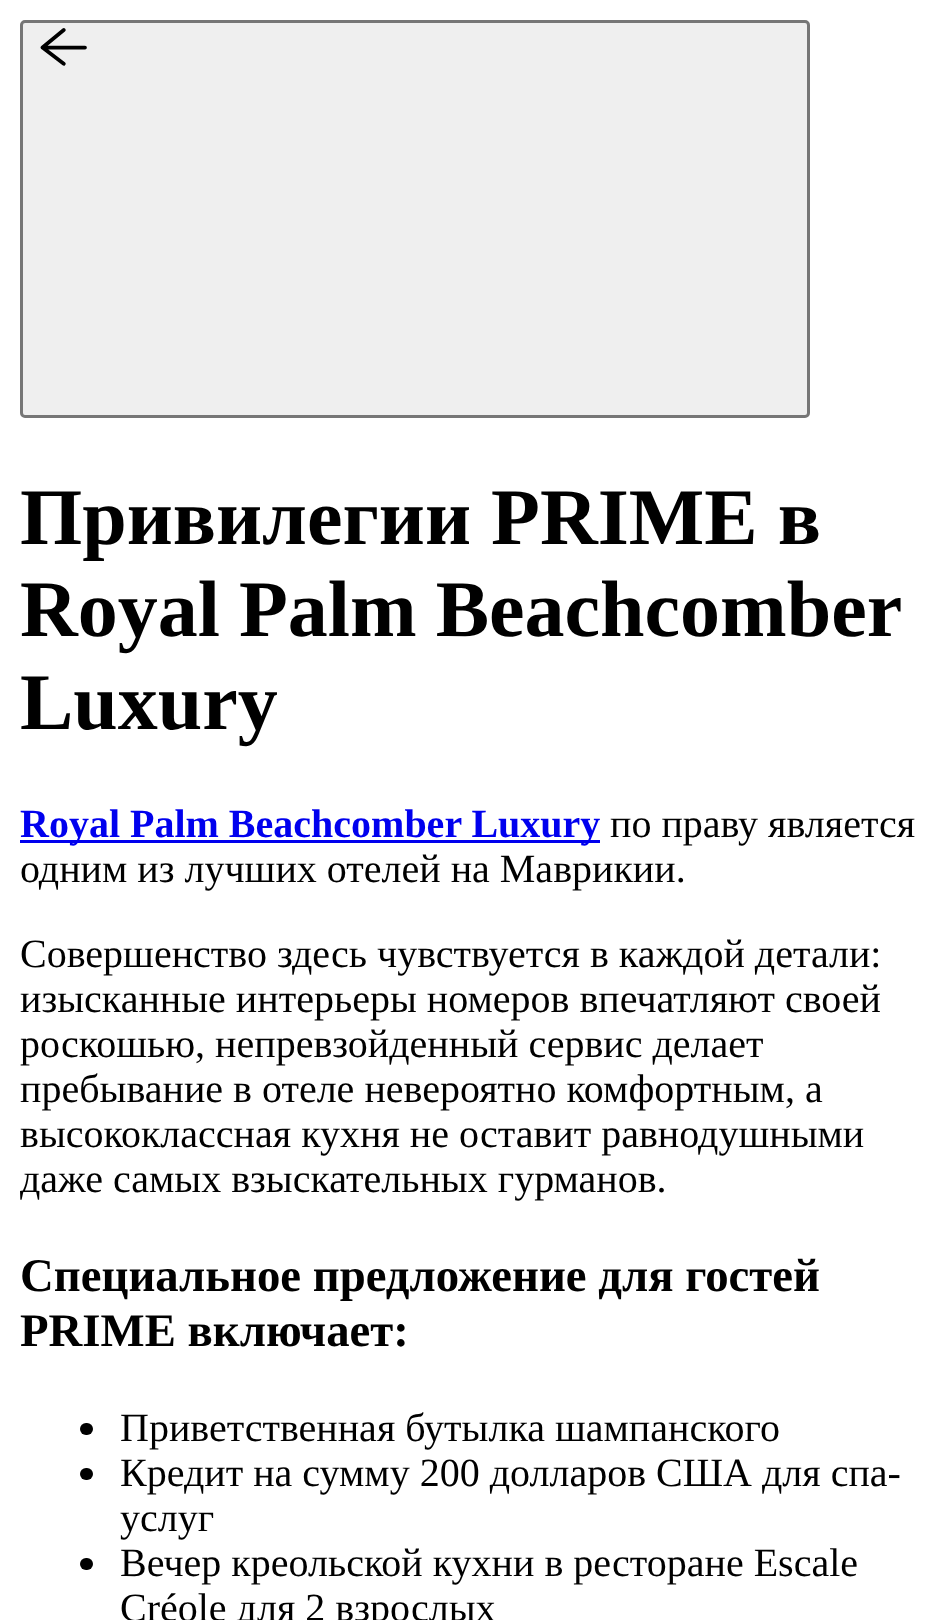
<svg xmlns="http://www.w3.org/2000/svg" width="941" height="1620">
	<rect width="100%" height="100%" fill="#FFFFFF" />
	<rect x="21.5" y="21.5" width="787" height="395" rx="3.5" fill="#EFEFEF" stroke="#767676" stroke-width="3" />
	<image x="40" y="28" width="47" height="38" href="assets/img1.png" />
	<g font-family="Liberation Serif" font-size="80" font-weight="700" fill="#000000">
		<text x="20" y="544">Привилегии PRIME в</text>
		<text x="20" y="636" word-spacing="-1">Royal Palm Beachcomber</text>
		<text x="20" y="729">Luxury</text>
	</g>
	<rect x="20" y="840" width="580" height="3" fill="#0000EE" />
	<text x="20" y="837" font-family="Liberation Serif" font-size="40" font-weight="700" fill="#0000EE">Royal Palm Beachcomber Luxury</text>
	<g font-family="Liberation Serif" font-size="40" fill="#000000">
		<text x="610" y="837">по праву является</text>
		<text x="20" y="882">одним из лучших отелей на Маврикии.</text>
		<text x="20" y="967">Совершенство здесь чувствуется в каждой детали:</text>
		<text x="20" y="1012">изысканные интерьеры номеров впечатляют своей</text>
		<text x="20" y="1057">роскошью, непревзойденный сервис делает</text>
		<text x="20" y="1102">пребывание в отеле невероятно комфортным, а</text>
		<text x="20" y="1147">высококлассная кухня не оставит равнодушными</text>
		<text x="20" y="1192">даже самых взыскательных гурманов.</text>
	</g>
	<g font-family="Liberation Serif" font-size="46.75" font-weight="700" fill="#000000">
		<text x="20" y="1291">Специальное предложение для гостей</text>
		<text x="20" y="1346">PRIME включает:</text>
	</g>
	<rect x="80" y="1423" width="13" height="12" rx="6" fill="#000000" />
	<text x="120" y="1441" font-family="Liberation Serif" font-size="40" fill="#000000">Приветственная бутылка шампанского</text>
	<rect x="80" y="1468" width="13" height="12" rx="6" fill="#000000" />
	<g font-family="Liberation Serif" font-size="40" fill="#000000">
		<text x="120" y="1486">Кредит на сумму 200 долларов США для спа-</text>
		<text x="120" y="1531">услуг</text>
	</g>
	<rect x="80" y="1558" width="13" height="12" rx="6" fill="#000000" />
	<g font-family="Liberation Serif" font-size="40" fill="#000000">
		<text x="120" y="1576">Вечер креольской кухни в ресторане Escale</text>
		<text x="120" y="1621">Créole для 2 взрослых</text>
	</g>
</svg>
